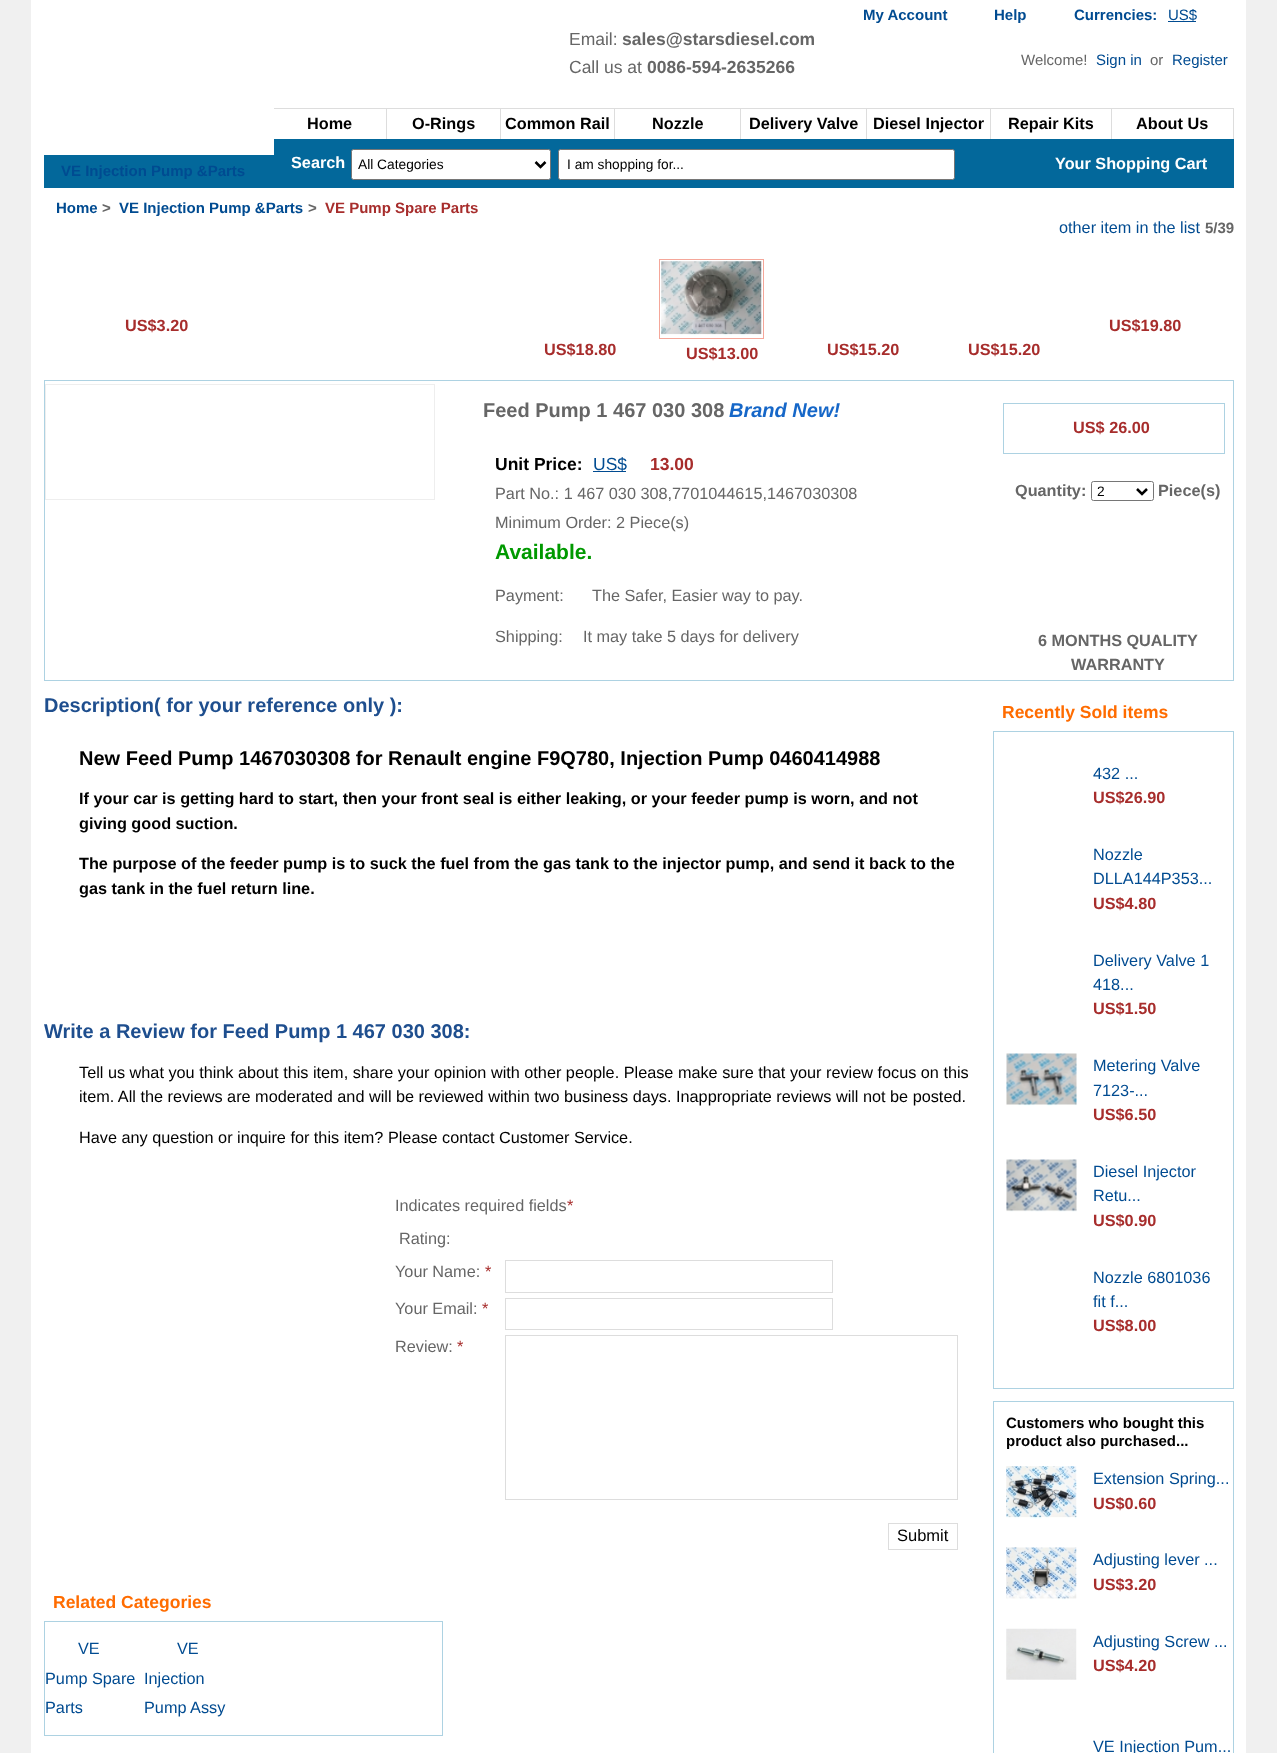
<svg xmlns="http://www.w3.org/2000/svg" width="1277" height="1753">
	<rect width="100%" height="100%" fill="#F0F0F0" />
	<rect x="31" y="0" width="1215" height="1753" fill="#FFFFFF" />
	<g font-family="Liberation Sans" font-size="15" font-weight="700" fill="#004B91">
		<text x="863" y="20">My Account</text>
		<text x="994" y="20">Help</text>
		<text x="1074" y="20">Currencies:</text>
	</g>
	<rect x="1168" y="21" width="28" height="1" fill="#004B91" />
	<text x="1168" y="20" font-family="Liberation Sans" font-size="15" fill="#004B91">US$</text>
	<text x="569" y="45" font-family="Liberation Sans" font-size="17.5" fill="#666666">Email:</text>
	<text x="622" y="45" font-family="Liberation Sans" font-size="17.5" font-weight="700" fill="#666666">sales@starsdiesel.com</text>
	<text x="569" y="73" font-family="Liberation Sans" font-size="17.5" fill="#666666">Call us at</text>
	<text x="647" y="73" font-family="Liberation Sans" font-size="17.5" font-weight="700" fill="#666666">0086-594-2635266</text>
	<text x="1021" y="65" font-family="Liberation Sans" font-size="15" fill="#666666">Welcome!</text>
	<text x="1096" y="65" font-family="Liberation Sans" font-size="15" fill="#004B91">Sign in</text>
	<text x="1150" y="65" font-family="Liberation Sans" font-size="15" fill="#666666">or</text>
	<text x="1172" y="65" font-family="Liberation Sans" font-size="15" fill="#004B91">Register</text>
	<rect x="44" y="155" width="230" height="33" fill="#03689B" />
	<text x="61" y="176" font-family="Liberation Sans" font-size="15" font-weight="700" fill="#004B91">VE Injection Pump &amp;Parts</text>
	<rect x="274" y="108" width="960" height="1" fill="#DDDDDD" />
	<rect x="386" y="108" width="1" height="31" fill="#DDDDDD" />
	<text x="307" y="129" font-family="Liberation Sans" font-size="16.25" font-weight="700" fill="#000000">Home</text>
	<rect x="500" y="108" width="1" height="31" fill="#DDDDDD" />
	<text x="412" y="129" font-family="Liberation Sans" font-size="16.25" font-weight="700" fill="#000000">O-Rings</text>
	<rect x="614" y="108" width="1" height="31" fill="#DDDDDD" />
	<text x="505" y="129" font-family="Liberation Sans" font-size="16.25" font-weight="700" fill="#000000">Common Rail</text>
	<rect x="740" y="108" width="1" height="31" fill="#DDDDDD" />
	<text x="652" y="129" font-family="Liberation Sans" font-size="16.25" font-weight="700" fill="#000000">Nozzle</text>
	<rect x="866" y="108" width="1" height="31" fill="#DDDDDD" />
	<text x="749" y="129" font-family="Liberation Sans" font-size="16.25" font-weight="700" fill="#000000">Delivery Valve</text>
	<rect x="990" y="108" width="1" height="31" fill="#DDDDDD" />
	<text x="873" y="129" font-family="Liberation Sans" font-size="16.25" font-weight="700" fill="#000000">Diesel Injector</text>
	<rect x="1111" y="108" width="1" height="31" fill="#DDDDDD" />
	<text x="1008" y="129" font-family="Liberation Sans" font-size="16.25" font-weight="700" fill="#000000">Repair Kits</text>
	<rect x="1233" y="108" width="1" height="31" fill="#DDDDDD" />
	<text x="1136" y="129" font-family="Liberation Sans" font-size="16.25" font-weight="700" fill="#000000">About Us</text>
	<rect x="274" y="139" width="960" height="49" fill="#03689B" />
	<text x="291" y="168" font-family="Liberation Sans" font-size="16.25" font-weight="700" fill="#FFFFFF">Search</text>
	<rect x="351.5" y="149.5" width="199" height="30" rx="2" fill="#FFFFFF" stroke="#767676" />
	<path d="M535.5 162L540.5 167L545.5 162" fill="none" stroke="#000000" stroke-width="2.5" />
	<text x="358" y="169" font-family="Liberation Sans" font-size="13.75" fill="#000000">All Categories</text>
	<rect x="558.5" y="149.5" width="396" height="30" rx="2" fill="#FFFFFF" stroke="#767676" />
	<text x="567" y="169" font-family="Liberation Sans" font-size="13.75" fill="#000000">I am shopping for...</text>
	<text x="1055" y="169" font-family="Liberation Sans" font-size="16.25" font-weight="700" fill="#FFFFFF">Your Shopping Cart</text>
	<text x="56" y="213" font-family="Liberation Sans" font-size="15" font-weight="700" fill="#004B91">Home</text>
	<text x="102" y="213" font-family="Liberation Sans" font-size="15" font-weight="700" fill="#666666">&gt;</text>
	<text x="119" y="213" font-family="Liberation Sans" font-size="15" font-weight="700" fill="#004B91">VE Injection Pump &amp;Parts</text>
	<text x="308" y="213" font-family="Liberation Sans" font-size="15" font-weight="700" fill="#666666">&gt;</text>
	<text x="325" y="213" font-family="Liberation Sans" font-size="15" font-weight="700" fill="#A72D2C">VE Pump Spare Parts</text>
	<text x="1059" y="233" font-family="Liberation Sans" font-size="16.25" fill="#004B91">other item in the list</text>
	<text x="1205" y="233" font-family="Liberation Sans" font-size="15" font-weight="700" fill="#666666">5/39</text>
	<g font-family="Liberation Sans" font-size="16.25" font-weight="700" fill="#A72D2C">
		<text x="125" y="331">US$3.20</text>
		<text x="1109" y="331">US$19.80</text>
		<text x="544" y="355">US$18.80</text>
	</g>
	<rect x="659.5" y="259.5" width="104" height="79" fill="none" stroke="#F5A79A" />
	<image x="661" y="261" width="101" height="75" href="assets/img1.png" />
	<g font-family="Liberation Sans" font-size="16.25" font-weight="700" fill="#A72D2C">
		<text x="686" y="359">US$13.00</text>
		<text x="827" y="355">US$15.20</text>
		<text x="968" y="355">US$15.20</text>
	</g>
	<rect x="44.5" y="380.5" width="1189" height="300" fill="none" stroke="#ADD2E2" />
	<rect x="45.5" y="384.5" width="389" height="115" fill="none" stroke="#EEEEEE" />
	<text x="483" y="417" font-family="Liberation Sans" font-size="20" font-weight="700" fill="#666666">Feed Pump 1 467 030 308</text>
	<text x="729" y="417" font-family="Liberation Sans" font-size="20" font-weight="700" font-style="italic" fill="#1667C8">Brand New!</text>
	<text x="495" y="470" font-family="Liberation Sans" font-size="17.5" font-weight="700" fill="#000000">Unit Price:</text>
	<rect x="593" y="471" width="33" height="1" fill="#004B91" />
	<text x="593" y="470" font-family="Liberation Sans" font-size="17.5" fill="#004B91">US$</text>
	<text x="650" y="470" font-family="Liberation Sans" font-size="17.5" font-weight="700" fill="#A72D2C">13.00</text>
	<g font-family="Liberation Sans" font-size="16.25" fill="#666666">
		<text x="495" y="499">Part No.: 1 467 030 308,7701044615,1467030308</text>
		<text x="495" y="528">Minimum Order: 2 Piece(s)</text>
	</g>
	<text x="495" y="559" font-family="Liberation Sans" font-size="21" font-weight="700" fill="#009900">Available.</text>
	<g font-family="Liberation Sans" font-size="16.25" fill="#666666">
		<text x="495" y="601">Payment:</text>
		<text x="592" y="601">The Safer, Easier way to pay.</text>
		<text x="495" y="642">Shipping:</text>
		<text x="583" y="642">It may take 5 days for delivery</text>
	</g>
	<rect x="1003.5" y="403.5" width="221" height="50" fill="none" stroke="#ADD2E2" />
	<text x="1073" y="433" font-family="Liberation Sans" font-size="16.25" font-weight="700" fill="#A72D2C">US$ 26.00</text>
	<text x="1015" y="496" font-family="Liberation Sans" font-size="16.25" font-weight="700" fill="#666666">Quantity:</text>
	<rect x="1091.5" y="481.5" width="62" height="19" rx="2" fill="none" stroke="#767676" />
	<path d="M1137 489L1142 494L1147 489" fill="none" stroke="#000000" stroke-width="2.5" />
	<text x="1097" y="496" font-family="Liberation Sans" font-size="13.75" fill="#000000">2</text>
	<g font-family="Liberation Sans" font-size="16.25" font-weight="700" fill="#666666">
		<text x="1158" y="496">Piece(s)</text>
		<text x="1038" y="646">6 MONTHS QUALITY</text>
		<text x="1071" y="670">WARRANTY</text>
	</g>
	<text x="44" y="712" font-family="Liberation Sans" font-size="20" font-weight="700" fill="#1E4E8E">Description( for your reference only ):</text>
	<text x="79" y="765" font-family="Liberation Sans" font-size="20" font-weight="700" fill="#000000">New Feed Pump 1467030308 for Renault engine F9Q780, Injection Pump 0460414988</text>
	<g font-family="Liberation Sans" font-size="16.25" font-weight="700" fill="#000000">
		<text x="79" y="804">If your car is getting hard to start, then your front seal is either leaking, or your feeder pump is worn, and not</text>
		<text x="79" y="829">giving good suction.</text>
		<text x="79" y="869">The purpose of the feeder pump is to suck the fuel from the gas tank to the injector pump, and send it back to the</text>
		<text x="79" y="894">gas tank in the fuel return line.</text>
	</g>
	<text x="44" y="1038" font-family="Liberation Sans" font-size="20" font-weight="700" fill="#1E4E8E">Write a Review for Feed Pump 1 467 030 308:</text>
	<g font-family="Liberation Sans" font-size="16.25" fill="#000000">
		<text x="79" y="1078">Tell us what you think about this item, share your opinion with other people. Please make sure that your review focus on this</text>
		<text x="79" y="1102">item. All the reviews are moderated and will be reviewed within two business days. Inappropriate reviews will not be posted.</text>
		<text x="79" y="1143">Have any question or inquire for this item? Please contact Customer Service.</text>
	</g>
	<text x="395" y="1211" font-family="Liberation Sans" font-size="16.25" fill="#666666">Indicates required fields</text>
	<text x="567" y="1211" font-family="Liberation Sans" font-size="16.25" fill="#A72D2C">*</text>
	<g font-family="Liberation Sans" font-size="16.25" fill="#666666">
		<text x="399" y="1244">Rating:</text>
		<text x="395" y="1277">Your Name:</text>
	</g>
	<text x="485" y="1277" font-family="Liberation Sans" font-size="16.25" fill="#A72D2C">*</text>
	<rect x="505.5" y="1260.5" width="327" height="32" fill="none" stroke="#DDDDDD" />
	<text x="395" y="1314" font-family="Liberation Sans" font-size="16.25" fill="#666666">Your Email:</text>
	<text x="482" y="1314" font-family="Liberation Sans" font-size="16.25" fill="#A72D2C">*</text>
	<rect x="505.5" y="1298.5" width="327" height="31" fill="none" stroke="#DDDDDD" />
	<text x="395" y="1352" font-family="Liberation Sans" font-size="16.25" fill="#666666">Review:</text>
	<text x="457" y="1352" font-family="Liberation Sans" font-size="16.25" fill="#A72D2C">*</text>
	<rect x="505.5" y="1335.5" width="452" height="164" fill="none" stroke="#DDDDDD" />
	<rect x="888.5" y="1523.5" width="69" height="26" fill="none" stroke="#DDDDDD" />
	<text x="897" y="1541" font-family="Liberation Sans" font-size="16.5" fill="#000000">Submit</text>
	<text x="53" y="1608" font-family="Liberation Sans" font-size="17.5" font-weight="700" fill="#FF6C00">Related Categories</text>
	<rect x="44.5" y="1621.5" width="398" height="114" fill="none" stroke="#ADD2E2" />
	<g font-family="Liberation Sans" font-size="16.25" fill="#004B91">
		<text x="78" y="1654">VE</text>
		<text x="45" y="1684">Pump Spare</text>
		<text x="45" y="1713">Parts</text>
		<text x="177" y="1654">VE</text>
		<text x="144" y="1684">Injection</text>
		<text x="144" y="1713">Pump Assy</text>
	</g>
	<text x="1002" y="718" font-family="Liberation Sans" font-size="17.5" font-weight="700" fill="#FF6C00">Recently Sold items</text>
	<rect x="993.5" y="731.5" width="240" height="657" fill="none" stroke="#ADD2E2" />
	<text x="1093" y="779" font-family="Liberation Sans" font-size="16.25" fill="#004B91">432 ...</text>
	<text x="1093" y="803" font-family="Liberation Sans" font-size="16.25" font-weight="700" fill="#A72D2C">US$26.90</text>
	<g font-family="Liberation Sans" font-size="16.25" fill="#004B91">
		<text x="1093" y="860">Nozzle</text>
		<text x="1093" y="884">DLLA144P353...</text>
	</g>
	<text x="1093" y="909" font-family="Liberation Sans" font-size="16.25" font-weight="700" fill="#A72D2C">US$4.80</text>
	<g font-family="Liberation Sans" font-size="16.25" fill="#004B91">
		<text x="1093" y="966">Delivery Valve 1</text>
		<text x="1093" y="990">418...</text>
	</g>
	<text x="1093" y="1014" font-family="Liberation Sans" font-size="16.25" font-weight="700" fill="#A72D2C">US$1.50</text>
	<image x="1006" y="1053" width="71" height="53" href="assets/img2.png" />
	<g font-family="Liberation Sans" font-size="16.25" fill="#004B91">
		<text x="1093" y="1071">Metering Valve</text>
		<text x="1093" y="1096">7123-...</text>
	</g>
	<text x="1093" y="1120" font-family="Liberation Sans" font-size="16.25" font-weight="700" fill="#A72D2C">US$6.50</text>
	<image x="1006" y="1159" width="71" height="53" href="assets/img3.png" />
	<g font-family="Liberation Sans" font-size="16.25" fill="#004B91">
		<text x="1093" y="1177">Diesel Injector</text>
		<text x="1093" y="1201">Retu...</text>
	</g>
	<text x="1093" y="1226" font-family="Liberation Sans" font-size="16.25" font-weight="700" fill="#A72D2C">US$0.90</text>
	<g font-family="Liberation Sans" font-size="16.25" fill="#004B91">
		<text x="1093" y="1283">Nozzle 6801036</text>
		<text x="1093" y="1307">fit f...</text>
	</g>
	<text x="1093" y="1331" font-family="Liberation Sans" font-size="16.25" font-weight="700" fill="#A72D2C">US$8.00</text>
	<rect x="993.5" y="1401.5" width="240" height="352" fill="none" stroke="#ADD2E2" />
	<g font-family="Liberation Sans" font-size="15" font-weight="700" fill="#000000">
		<text x="1006" y="1428">Customers who bought this</text>
		<text x="1006" y="1446">product also purchased...</text>
	</g>
	<image x="1006" y="1466" width="71" height="53" href="assets/img4.png" />
	<text x="1093" y="1484" font-family="Liberation Sans" font-size="16.25" fill="#004B91">Extension Spring...</text>
	<text x="1093" y="1509" font-family="Liberation Sans" font-size="16.25" font-weight="700" fill="#A72D2C">US$0.60</text>
	<image x="1006" y="1547" width="71" height="53" href="assets/img5.png" />
	<text x="1093" y="1565" font-family="Liberation Sans" font-size="16.25" fill="#004B91">Adjusting lever ...</text>
	<text x="1093" y="1590" font-family="Liberation Sans" font-size="16.25" font-weight="700" fill="#A72D2C">US$3.20</text>
	<image x="1006" y="1628" width="71" height="52" href="assets/img6.png" />
	<text x="1093" y="1647" font-family="Liberation Sans" font-size="16.25" fill="#004B91">Adjusting Screw ...</text>
	<text x="1093" y="1671" font-family="Liberation Sans" font-size="16.25" font-weight="700" fill="#A72D2C">US$4.20</text>
	<text x="1093" y="1752" font-family="Liberation Sans" font-size="16.25" fill="#004B91">VE Injection Pum...</text>
</svg>
